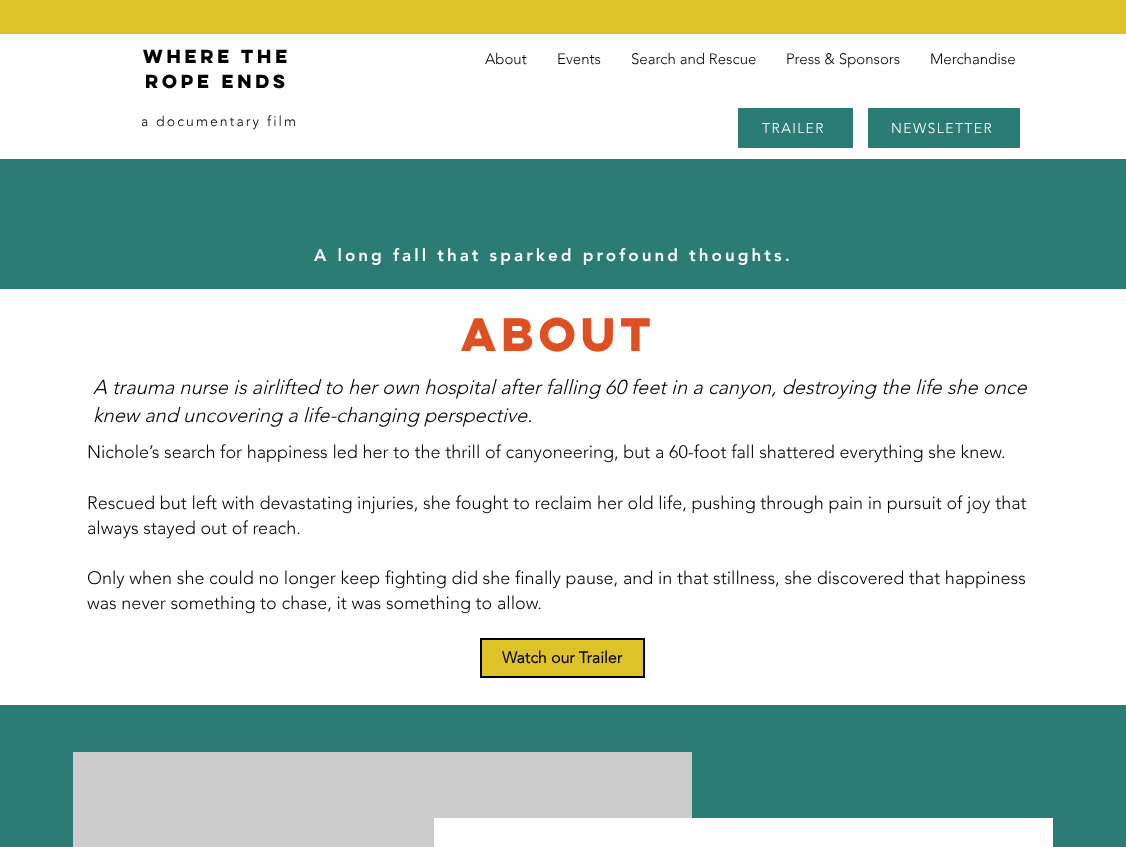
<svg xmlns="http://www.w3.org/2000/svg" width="1126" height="847">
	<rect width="100%" height="100%" fill="#2B7C74" />
	<rect x="0" y="34" width="1126" height="125" fill="#FFFFFF" />
	<rect x="0" y="0" width="1126" height="34" fill="#DEC328" />
	<g font-family="'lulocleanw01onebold'" font-size="17" font-weight="700" fill="#000000">
		<text x="143" y="63">WHERE THE</text>
		<text x="145" y="88">ROPE ENDS</text>
	</g>
	<g font-family="'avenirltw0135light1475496'" font-size="15" font-weight="300" fill="#000000">
		<text x="485" y="64">About</text>
		<text x="557" y="64">Events</text>
		<text x="631" y="64">Search and Rescue</text>
		<text x="786" y="64">Press &amp; Sponsors</text>
		<text x="930" y="64">Merchandise</text>
	</g>
	<text x="141" y="126" font-family="'avenirltw0135light1475496'" font-size="14" font-weight="300" letter-spacing="2.1" fill="#000000">a documentary film</text>
	<rect x="738" y="108" width="115" height="40" fill="#2B7C74" />
	<text x="762" y="133" font-family="'avenirltw0135light1475496'" font-size="14" font-weight="300" letter-spacing="1.4" fill="#FFFFFF">TRAILER</text>
	<rect x="868" y="108" width="152" height="40" fill="#2B7C74" />
	<text x="891" y="133" font-family="'avenirltw0135light1475496'" font-size="14" font-weight="300" letter-spacing="1.4" fill="#FFFFFF">NEWSLETTER</text>
	<text x="314" y="261" font-family="'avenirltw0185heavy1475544'" font-size="17" font-weight="900" letter-spacing="3.05" fill="#FFFFFF">A long fall that sparked profound thoughts.</text>
	<rect x="0" y="289" width="1126" height="416" fill="#FFFFFF" />
	<text x="461" y="351" font-family="'lulocleanw01onebold'" font-size="42" font-weight="700" letter-spacing="-4.25" fill="#DE5021">About</text>
	<g font-family="'avenirltw0135light1475496'" font-size="20" font-weight="300" font-style="italic" fill="#000000">
		<text x="93" y="394">A trauma nurse is airlifted to her own hospital after falling 60 feet in a canyon, destroying the life she once</text>
		<text x="93" y="422">knew and uncovering a life-changing perspective.</text>
	</g>
	<g font-family="'avenirltw0135light1475496'" font-size="18" font-weight="300" fill="#000000">
		<text x="87" y="458">Nichole’s search for happiness led her to the thrill of canyoneering, but a 60-foot fall shattered everything she knew.</text>
		<text x="87" y="509">Rescued but left with devastating injuries, she fought to reclaim her old life, pushing through pain in pursuit of joy that</text>
		<text x="87" y="534">always stayed out of reach.</text>
		<text x="87" y="584">Only when she could no longer keep fighting did she finally pause, and in that stillness, she discovered that happiness</text>
		<text x="87" y="609">was never something to chase, it was something to allow.</text>
	</g>
	<rect x="481" y="639" width="163" height="38" fill="#DEC328" stroke="#000000" stroke-width="2" />
	<text x="502" y="663" font-family="'avenirltw0135light1475496'" font-size="16" font-weight="700" fill="#000000">Watch our Trailer</text>
	<rect x="73" y="752" width="619" height="95" fill="#CCCCCC" />
	<rect x="434" y="818" width="619" height="29" fill="#FFFFFF" />
</svg>
